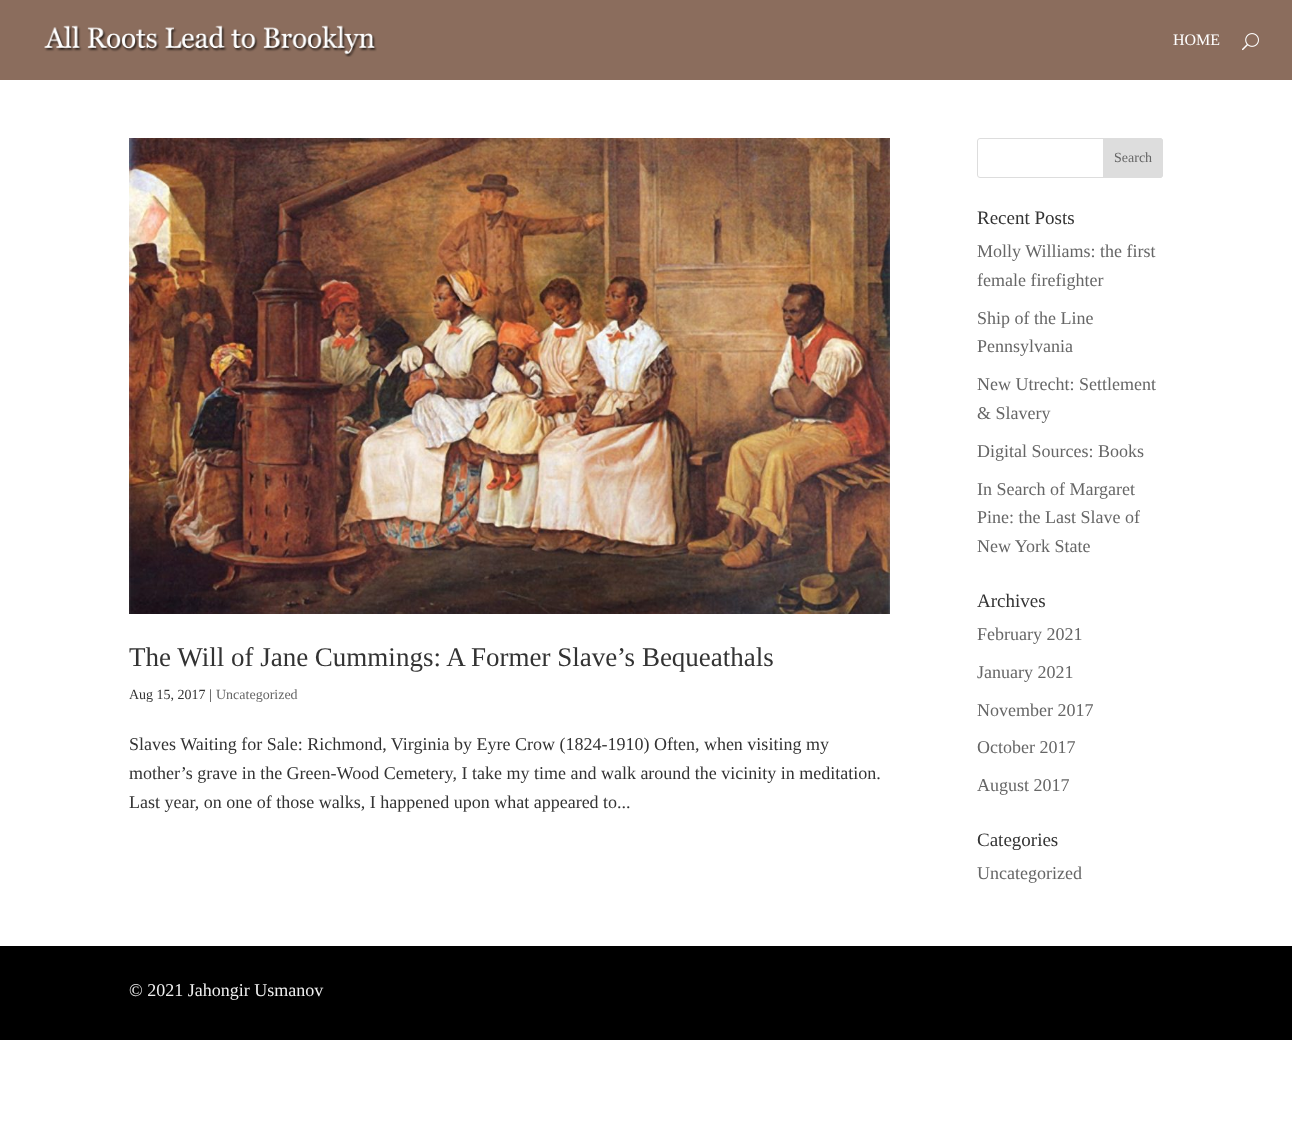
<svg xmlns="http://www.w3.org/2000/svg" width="1292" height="1124">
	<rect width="100%" height="100%" fill="#FFFFFF" />
	<rect x="0" y="0" width="1292" height="80" fill="#8B6D5D" />
	<image x="44" y="25" width="333" height="32" href="assets/img1.png" />
	<text x="1173" y="45" font-family="Liberation Serif" font-size="16" fill="#FFFFFF">HOME</text>
	<image x="1242" y="33" width="17" height="18" href="assets/img2.png" />
	<image x="129" y="138" width="761" height="476" href="assets/img3.png" />
	<text x="129" y="666" font-family="Liberation Serif" font-size="27" fill="#333333">The Will of Jane Cummings: A Former Slave’s Bequeathals</text>
	<text x="129" y="699" font-family="Liberation Serif" font-size="14" fill="#333333">Aug 15, 2017 |</text>
	<text x="216" y="699" font-family="Liberation Serif" font-size="14" fill="#666666">Uncategorized</text>
	<g font-family="Liberation Serif" font-size="18" fill="#333333">
		<text x="129" y="750">Slaves Waiting for Sale: Richmond, Virginia by Eyre Crow (1824-1910) Often, when visiting my</text>
		<text x="129" y="779">mother’s grave in the Green-Wood Cemetery, I take my time and walk around the vicinity in meditation.</text>
		<text x="129" y="808">Last year, on one of those walks, I happened upon what appeared to...</text>
	</g>
	<rect x="977.5" y="138.5" width="185" height="39" rx="2.5" fill="none" stroke="#DDDDDD" />
	<path d="M1103.5 138.5H1160C1161.5 138.5 1162.5 139.5 1162.5 141V175C1162.5 176.5 1161.5 177.5 1160 177.5H1103.5Z" fill="#DDDDDD" stroke="#DDDDDD" />
	<text x="1114" y="162" font-family="Liberation Serif" font-size="14" fill="#666666">Search</text>
	<text x="977" y="224" font-family="Liberation Serif" font-size="19" fill="#333333">Recent Posts</text>
	<g font-family="Liberation Serif" font-size="18" fill="#666666">
		<text x="977" y="257">Molly Williams: the first</text>
		<text x="977" y="286">female firefighter</text>
		<text x="977" y="324">Ship of the Line</text>
		<text x="977" y="352">Pennsylvania</text>
		<text x="977" y="390">New Utrecht: Settlement</text>
		<text x="977" y="419">&amp; Slavery</text>
		<text x="977" y="457">Digital Sources: Books</text>
		<text x="977" y="495">In Search of Margaret</text>
		<text x="977" y="523">Pine: the Last Slave of</text>
		<text x="977" y="552">New York State</text>
	</g>
	<text x="977" y="607" font-family="Liberation Serif" font-size="19" fill="#333333">Archives</text>
	<g font-family="Liberation Serif" font-size="18" fill="#666666">
		<text x="977" y="640">February 2021</text>
		<text x="977" y="678">January 2021</text>
		<text x="977" y="716">November 2017</text>
		<text x="977" y="753">October 2017</text>
		<text x="977" y="791">August 2017</text>
	</g>
	<text x="977" y="846" font-family="Liberation Serif" font-size="19" fill="#333333">Categories</text>
	<text x="977" y="879" font-family="Liberation Serif" font-size="18" fill="#666666">Uncategorized</text>
	<rect x="0" y="946" width="1292" height="94" fill="#000000" />
	<text x="129" y="996" font-family="Liberation Serif" font-size="18" fill="#EFEFEF">© 2021 Jahongir Usmanov</text>
</svg>
